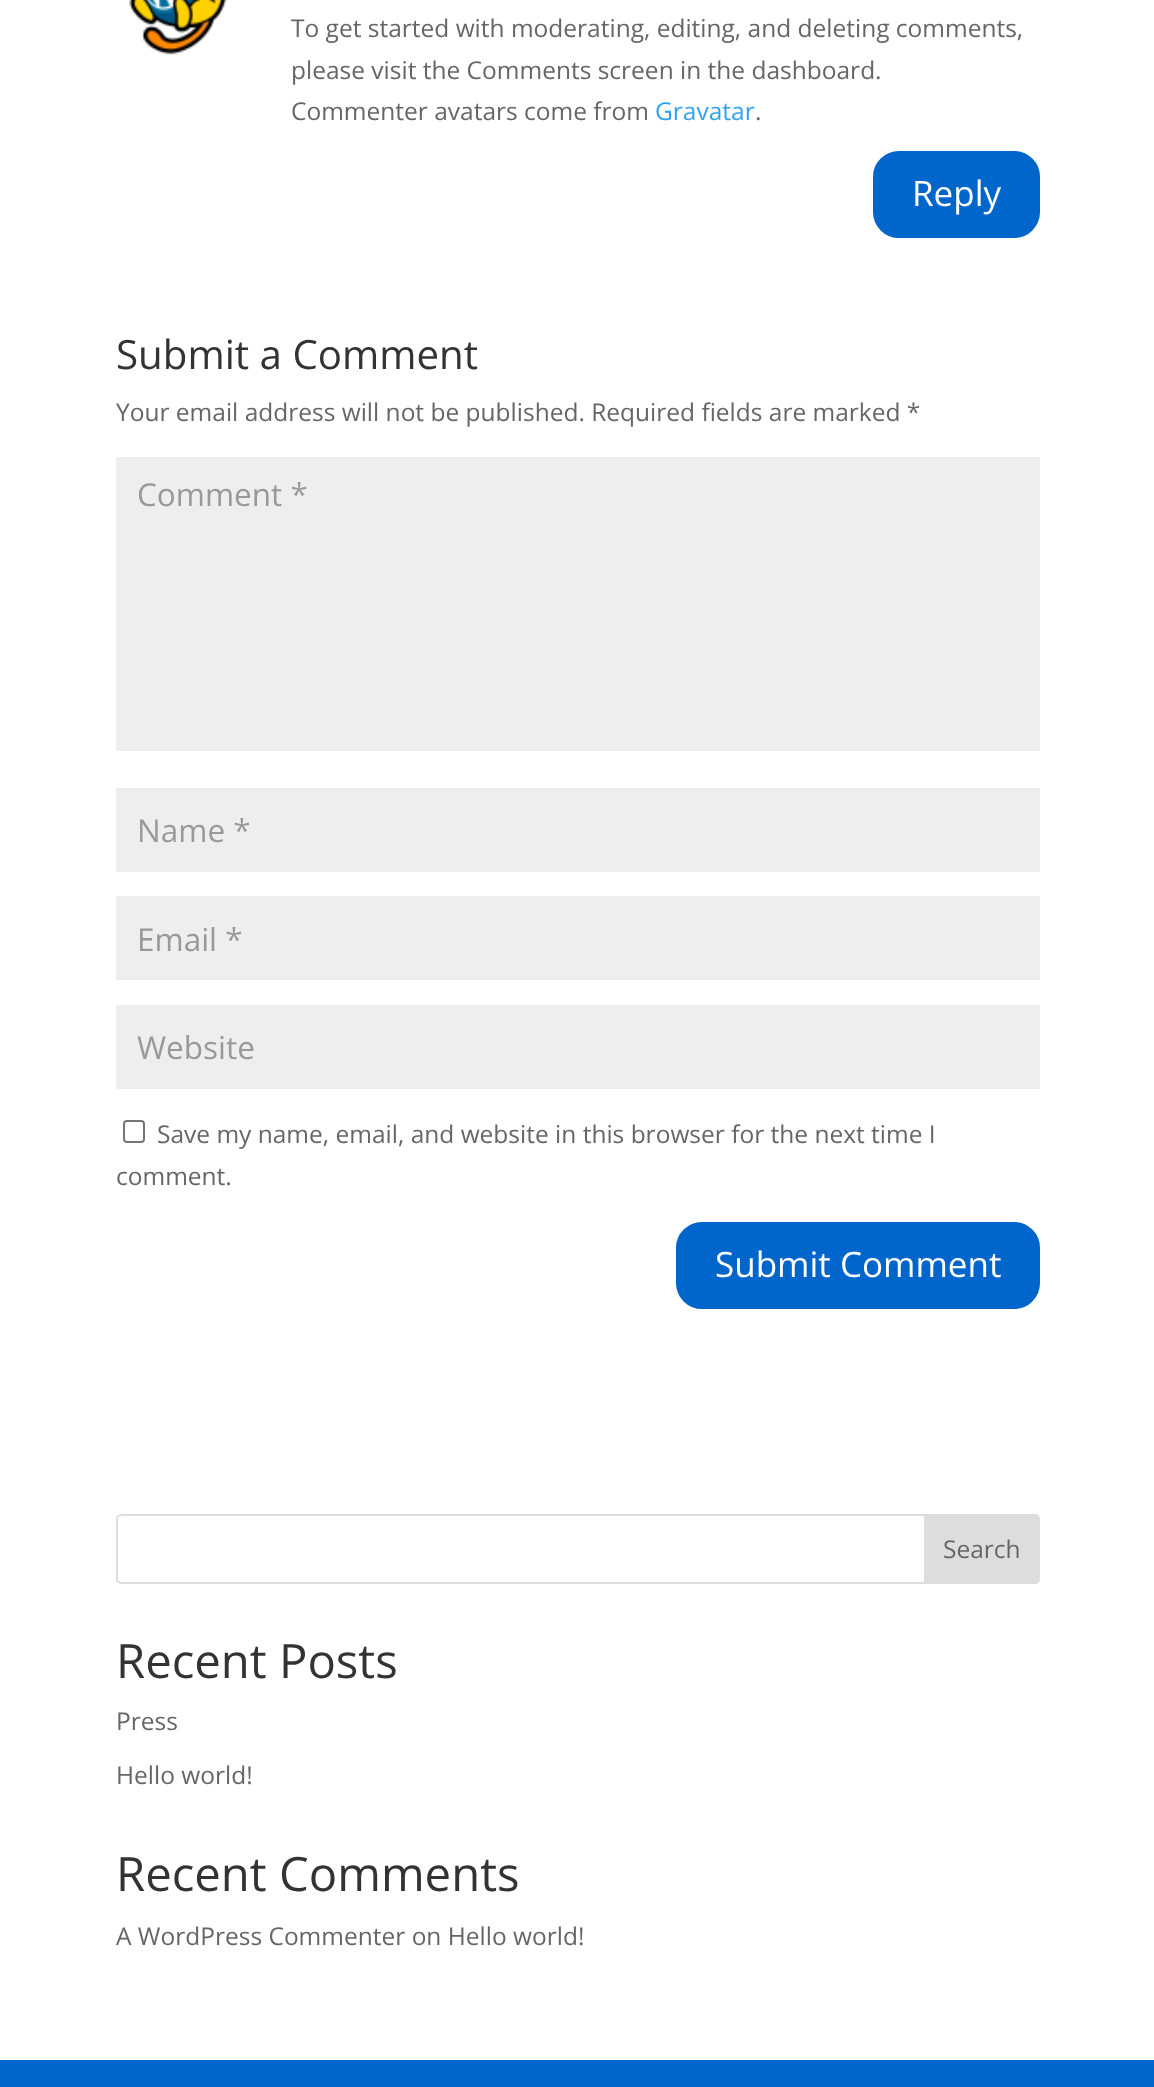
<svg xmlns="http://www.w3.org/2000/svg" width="1154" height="2087">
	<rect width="100%" height="100%" fill="#FFFFFF" />
	<image x="129" y="0" width="98" height="55" href="assets/img1.png" />
	<g font-family="Open Sans" font-size="24.5" fill="#666666">
		<text x="291" y="37">To get started with moderating, editing, and deleting comments,</text>
		<text x="291" y="79">please visit the Comments screen in the dashboard.</text>
		<text x="291" y="120">Commenter avatars come from</text>
	</g>
	<text x="655" y="120" font-family="Open Sans" font-size="24.5" fill="#2EA3F2">Gravatar</text>
	<text x="755" y="120" font-family="Open Sans" font-size="24.5" fill="#666666">.</text>
	<rect x="875" y="153" width="163" height="83" rx="24" fill="#0066CB" stroke="#0066CB" stroke-width="4" />
	<text x="912" y="206" font-family="Open Sans" font-size="35" fill="#FFFFFF">Reply</text>
	<text x="116" y="369" font-family="Open Sans" font-size="40.25" fill="#333333">Submit a Comment</text>
	<text x="116" y="421" font-family="Open Sans" font-size="24.5" fill="#666666">Your email address will not be published. Required fields are marked *</text>
	<rect x="116" y="457" width="924" height="294" fill="#EEEEEE" />
	<text x="137" y="506" font-family="Open Sans" font-size="31.5" fill="#999999">Comment *</text>
	<rect x="116" y="788" width="924" height="84" fill="#EEEEEE" />
	<text x="137" y="842" font-family="Open Sans" font-size="31.5" fill="#999999">Name *</text>
	<rect x="116" y="896" width="924" height="84" fill="#EEEEEE" />
	<text x="137" y="951" font-family="Open Sans" font-size="31.5" fill="#999999">Email *</text>
	<rect x="116" y="1005" width="924" height="84" fill="#EEEEEE" />
	<text x="137" y="1059" font-family="Open Sans" font-size="31.5" fill="#999999">Website</text>
	<rect x="124" y="1121" width="20" height="21" rx="3" fill="none" stroke="#767676" stroke-width="2" />
	<g font-family="Open Sans" font-size="24.5" fill="#666666">
		<text x="157" y="1143">Save my name, email, and website in this browser for the next time I</text>
		<text x="116" y="1185">comment.</text>
	</g>
	<rect x="678" y="1224" width="360" height="83" rx="24" fill="#0066CB" stroke="#0066CB" stroke-width="4" />
	<text x="715" y="1277" font-family="Open Sans" font-size="35" fill="#FFFFFF">Submit Comment</text>
	<rect x="117" y="1515" width="922" height="68" rx="4" fill="none" stroke="#DDDDDD" stroke-width="2" />
	<path d="M925 1515H1035C1037 1515 1039 1517 1039 1519V1579C1039 1581 1037 1583 1035 1583H925Z" fill="#DDDDDD" stroke="#DDDDDD" stroke-width="2" />
	<text x="943" y="1558" font-family="Open Sans" font-size="24.5" fill="#666666">Search</text>
	<text x="116" y="1678" font-family="Open Sans" font-size="47.25" fill="#333333">Recent Posts</text>
	<g font-family="Open Sans" font-size="24.5" fill="#666666">
		<text x="116" y="1730">Press</text>
		<text x="116" y="1784">Hello world!</text>
	</g>
	<text x="116" y="1891" font-family="Open Sans" font-size="47.25" fill="#333333">Recent Comments</text>
	<text x="116" y="1945" font-family="Open Sans" font-size="24.5" fill="#666666">A WordPress Commenter on Hello world!</text>
	<rect x="0" y="2060" width="1154" height="27" fill="#0066CB" />
</svg>
